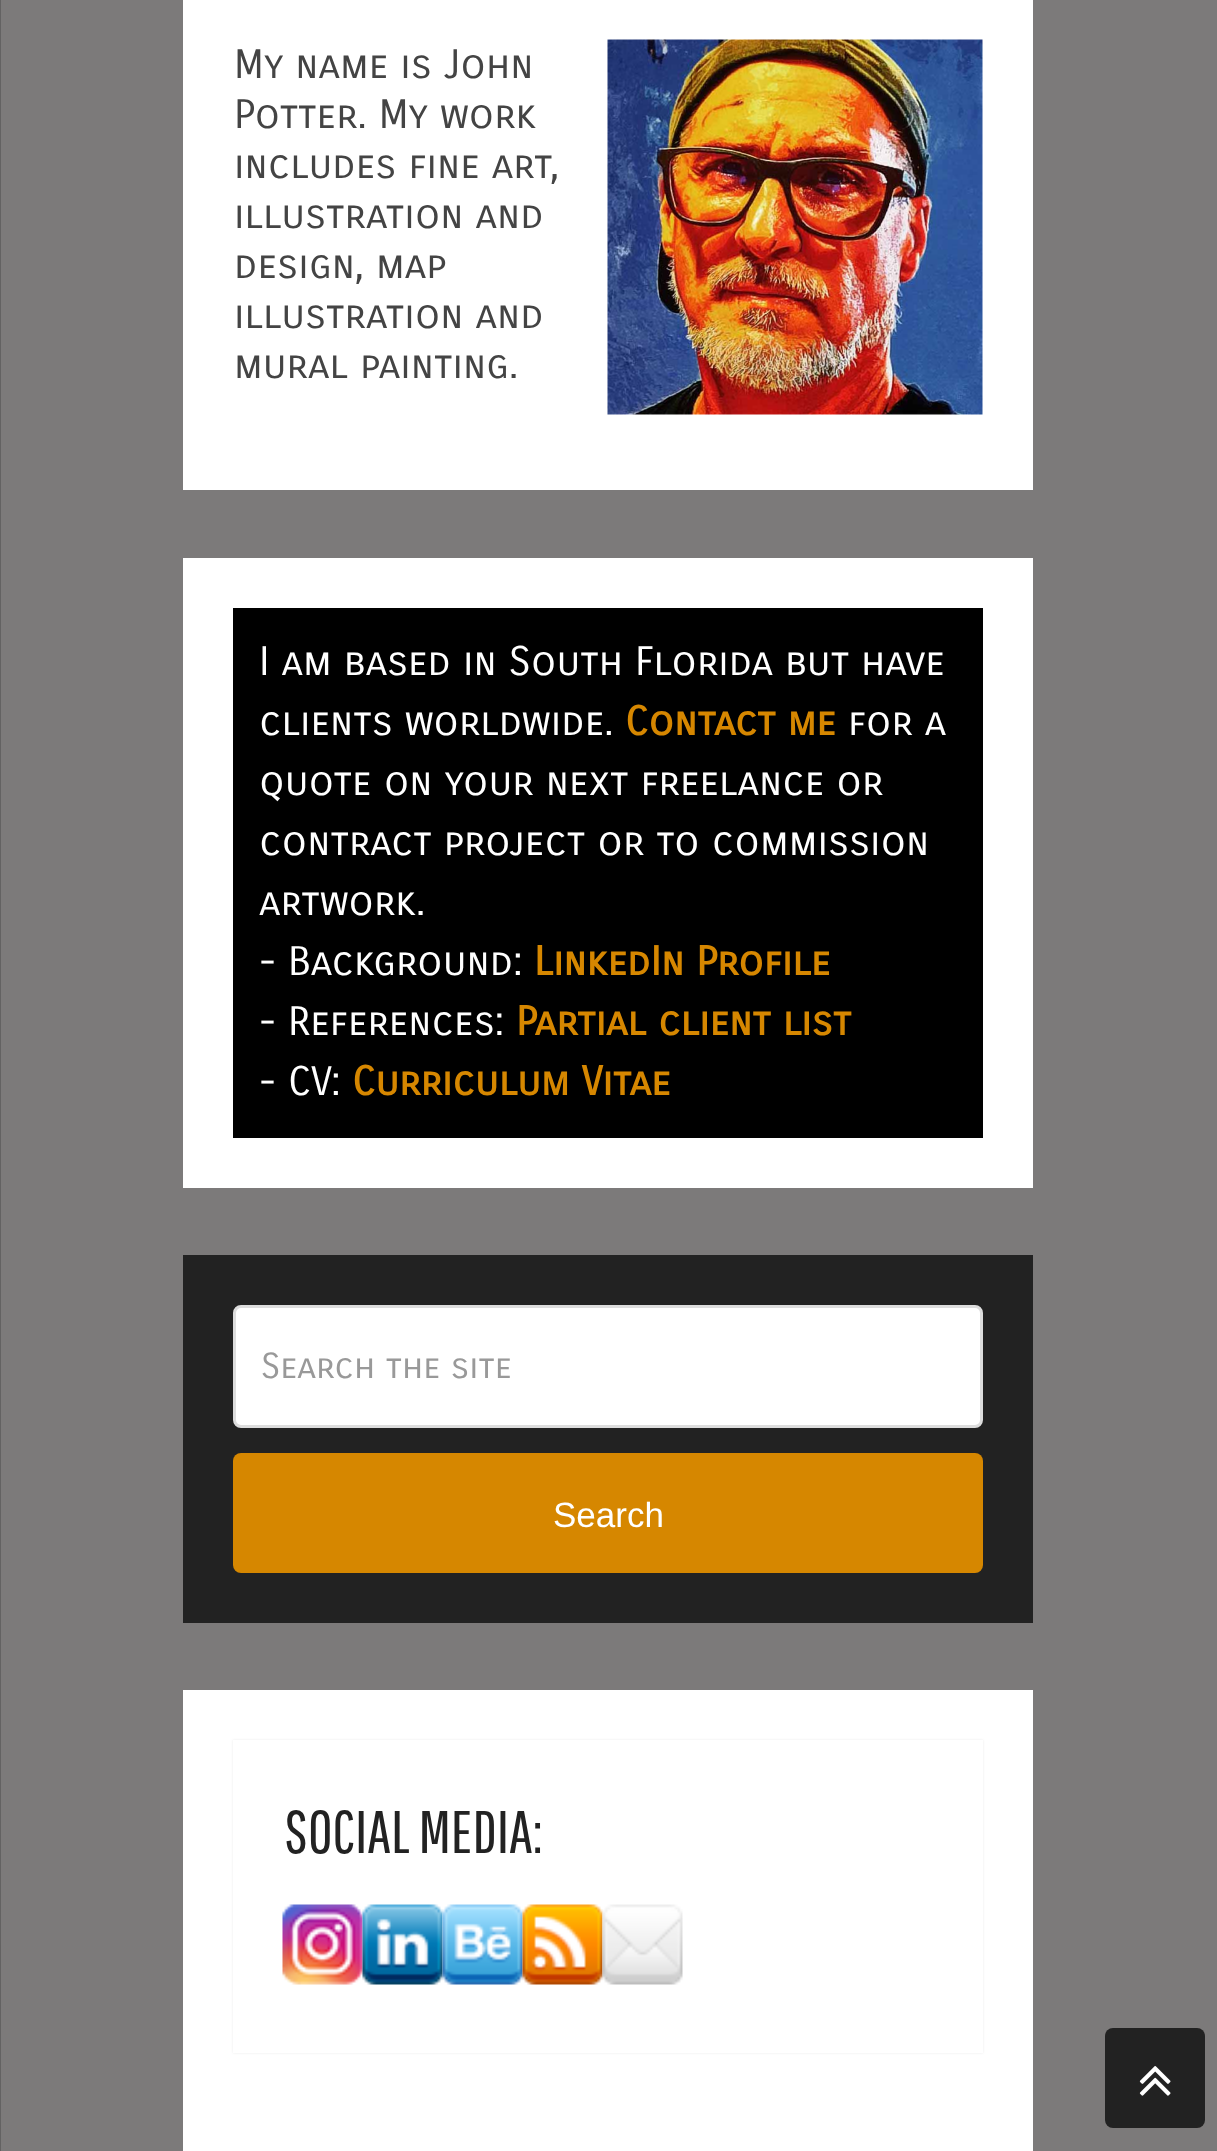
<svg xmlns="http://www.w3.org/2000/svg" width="1217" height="2151">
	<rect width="100%" height="100%" fill="#7C7A7A" />
	<rect x="0" y="0" width="1" height="2151" fill="#636262" />
	<rect x="183" y="0" width="850" height="490" fill="#FFFFFF" />
	<text x="234" y="78" font-family="Carrois Gothic SC" font-size="40" fill="#444444">My name is John</text>
	<image x="607" y="39" width="376" height="376" href="assets/img1.png" />
	<g font-family="Carrois Gothic SC" font-size="40" fill="#444444">
		<text x="234" y="128">Potter. My work</text>
		<text x="234" y="178">includes fine art,</text>
		<text x="234" y="228">illustration and</text>
		<text x="234" y="278">design, map</text>
		<text x="234" y="328">illustration and</text>
		<text x="234" y="378">mural painting.</text>
	</g>
	<rect x="183" y="558" width="850" height="630" fill="#FFFFFF" />
	<rect x="233" y="608" width="750" height="530" fill="#000000" />
	<g font-family="Carrois Gothic SC" font-size="40" fill="#FFFFFF">
		<text x="259" y="675">I am based in South Florida but have</text>
		<text x="259" y="735">clients worldwide.</text>
	</g>
	<text x="625" y="735" font-family="Carrois Gothic SC" font-size="40" font-weight="700" fill="#D68700">Contact me</text>
	<g font-family="Carrois Gothic SC" font-size="40" fill="#FFFFFF">
		<text x="848" y="735">for a</text>
		<text x="259" y="795">quote on your next freelance or</text>
		<text x="259" y="855">contract project or to commission</text>
		<text x="259" y="915">artwork.</text>
		<text x="259" y="975">- Background:</text>
	</g>
	<text x="534" y="975" font-family="Carrois Gothic SC" font-size="40" font-weight="700" fill="#D68700">LinkedIn Profile</text>
	<text x="259" y="1035" font-family="Carrois Gothic SC" font-size="40" fill="#FFFFFF">- References:</text>
	<text x="516" y="1035" font-family="Carrois Gothic SC" font-size="40" font-weight="700" fill="#D68700">Partial client list</text>
	<text x="259" y="1095" font-family="Carrois Gothic SC" font-size="40" fill="#FFFFFF">- CV:</text>
	<text x="352" y="1095" font-family="Carrois Gothic SC" font-size="40" font-weight="700" fill="#D68700">Curriculum Vitae</text>
	<rect x="183" y="1255" width="850" height="368" fill="#222222" />
	<rect x="234.5" y="1306.5" width="747" height="120" rx="6.5" fill="#FFFFFF" stroke="#DDDDDD" stroke-width="3" />
	<text x="261" y="1378" font-family="Carrois Gothic SC" font-size="35" fill="#999999">Search the site</text>
	<rect x="233" y="1453" width="750" height="120" rx="8" fill="#D68700" />
	<text x="553" y="1527" font-family="Liberation Sans" font-size="35" fill="#FFFFFF">Search</text>
	<rect x="183" y="1690" width="850" height="461" fill="#FFFFFF" />
	<rect x="233" y="1740" width="750" height="313" fill="#323232" fill-opacity="0.1" filter="blur(1px)" />
	<rect x="233" y="1740" width="750" height="313" fill="#FFFFFF" />
	<text x="284" y="1853" font-family="Pathway Gothic One" font-size="60" fill="#222222">SOCIAL MEDIA:</text>
	<image x="282" y="1904" width="81" height="81" href="assets/img2.png" />
	<image x="362" y="1904" width="81" height="81" href="assets/img3.png" />
	<image x="442" y="1904" width="81" height="81" href="assets/img4.png" />
	<image x="522" y="1904" width="81" height="81" href="assets/img5.png" />
	<image x="602" y="1904" width="81" height="81" href="assets/img6.png" />
	<rect x="1105" y="2028" width="100" height="100" rx="8" fill="#222222" />
	<image x="1139" y="2066" width="32" height="30" href="assets/img7.png" />
</svg>
